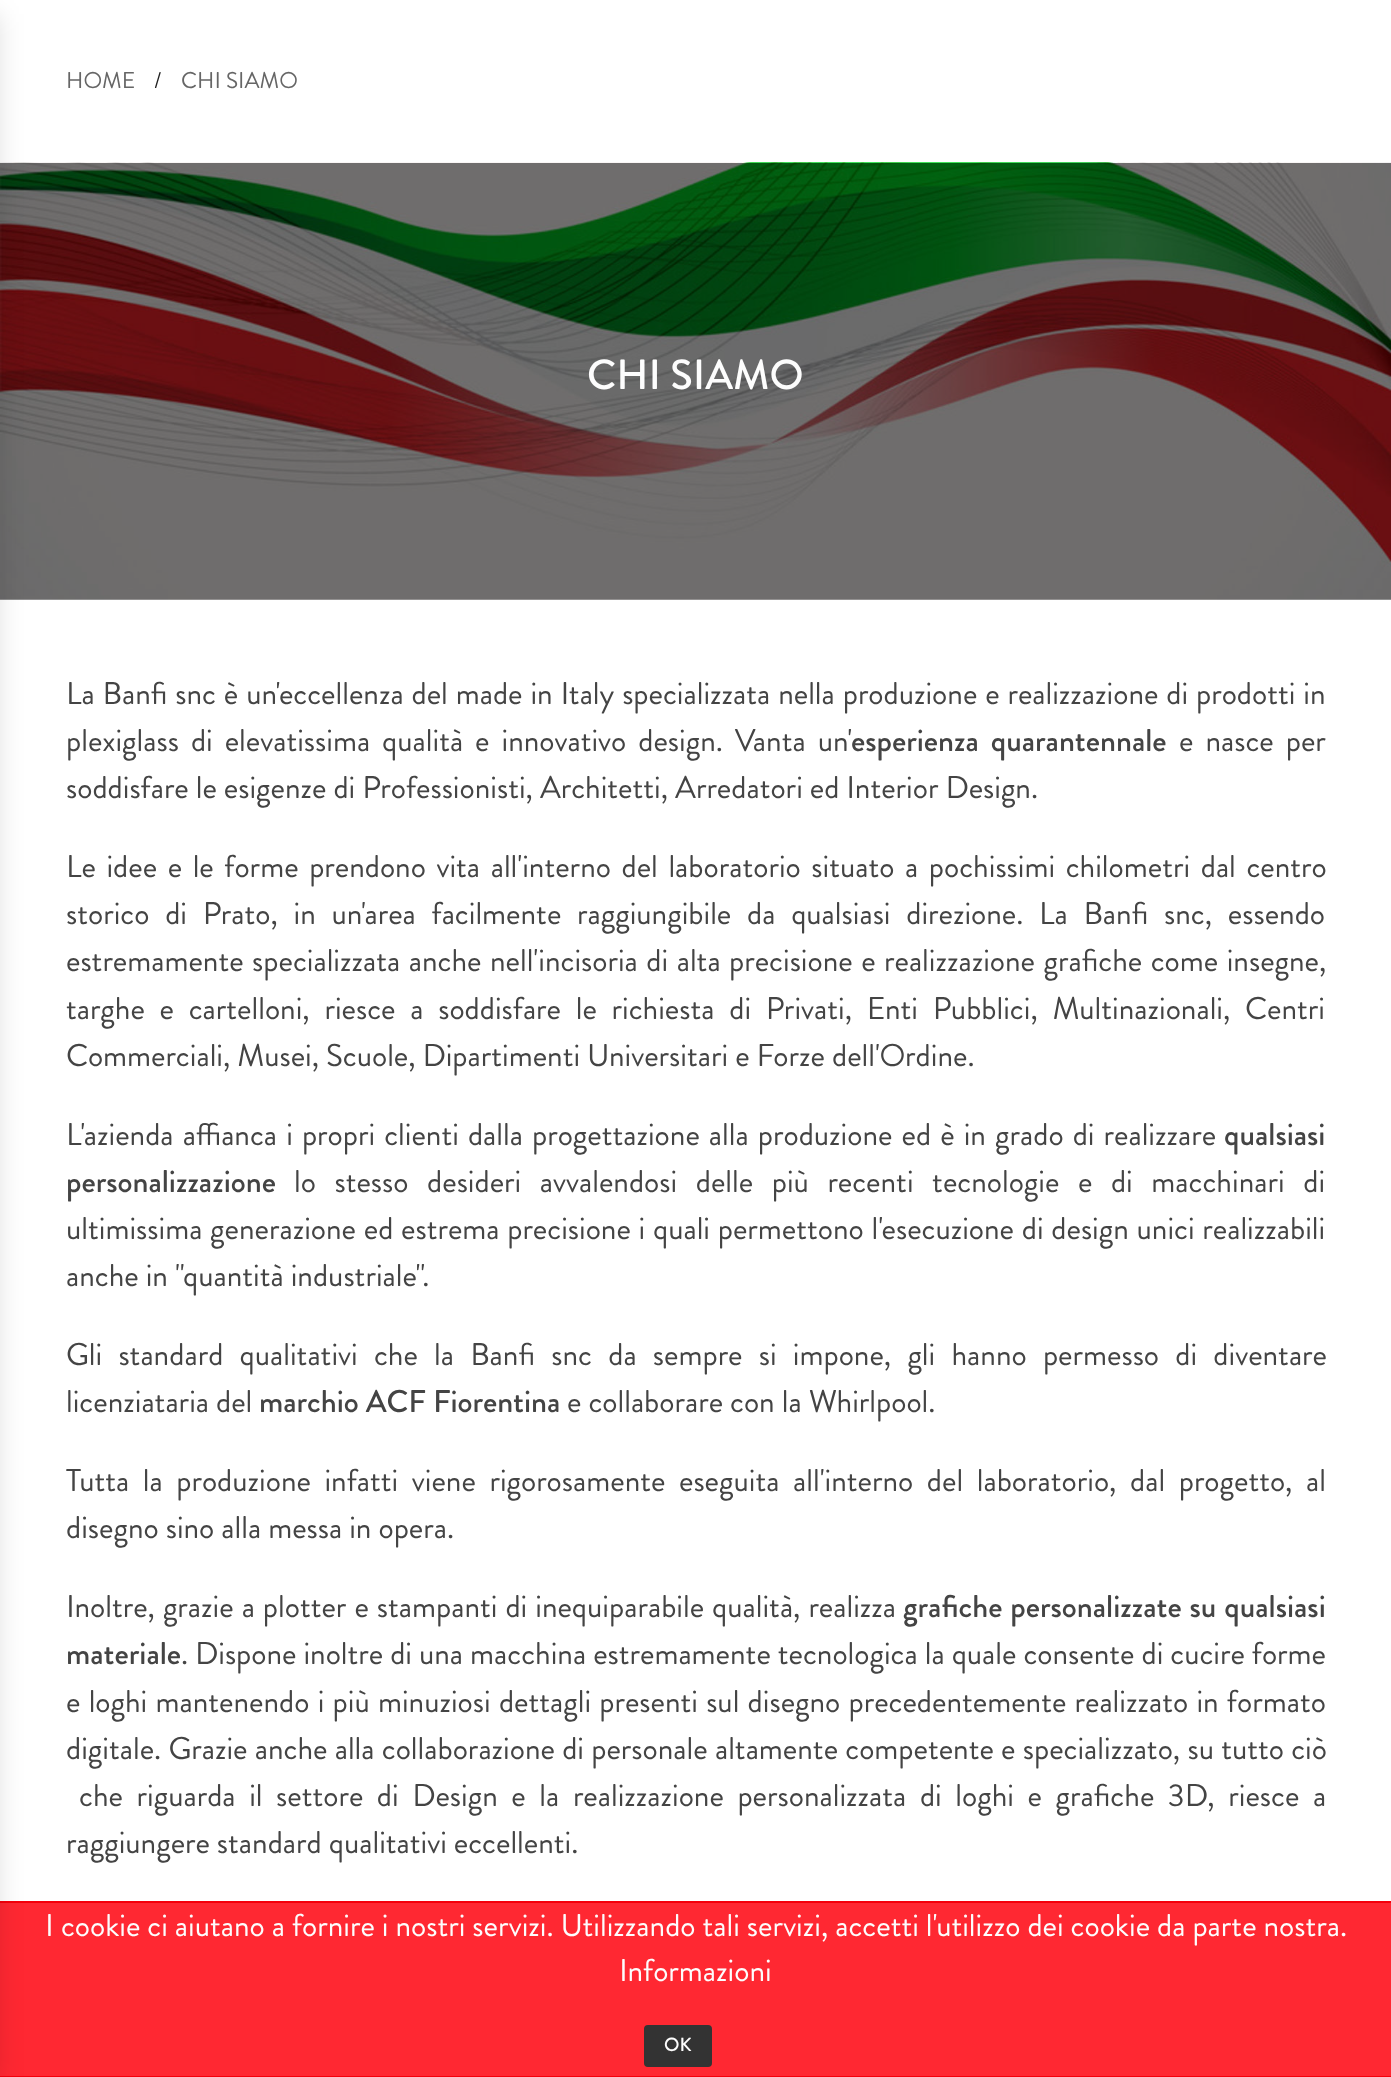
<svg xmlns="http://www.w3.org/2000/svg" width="1391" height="2077">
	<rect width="100%" height="100%" fill="#FFFFFF" />
	<image x="0" y="162" width="1391" height="438" href="assets/img1.png" />
	<rect x="0" y="1903" width="1391" height="173" fill="#FF2832" />
	<rect x="0" y="1901" width="1391" height="2" fill="#F4000B" />
	<rect x="0" y="2076" width="1391" height="1" fill="#F4000B" />
	<rect x="-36" y="14" width="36" height="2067" fill="#000000" fill-opacity="0.11" filter="blur(12px)" />
	<text x="66" y="88" font-family="Brandon Grotesque" font-size="22.75" fill="#666666">HOME</text>
	<text x="154" y="88" font-family="Brandon Grotesque" font-size="22.75" fill="#222222">/</text>
	<text x="181" y="88" font-family="Brandon Grotesque" font-size="22.75" fill="#666666">CHI SIAMO</text>
	<text x="587" y="389" font-family="Brandon Grotesque" font-size="42" font-weight="500" fill="#FDFDFD">CHI SIAMO</text>
	<g font-family="Brandon Grotesque" font-size="31.5" fill="#444444">
		<text x="66" y="704" word-spacing="0.9">La Banfi snc è un'eccellenza del made in Italy specializzata nella produzione e realizzazione di prodotti in</text>
		<text x="66" y="751" word-spacing="5">plexiglass di elevatissima qualità e innovativo design. Vanta un'</text>
	</g>
	<text x="851" y="751" word-spacing="5" font-family="Brandon Grotesque" font-size="31.5" font-weight="500" fill="#444444">esperienza quarantennale</text>
	<g font-family="Brandon Grotesque" font-size="31.5" fill="#444444">
		<text x="1179" y="751" word-spacing="5">e nasce per</text>
		<text x="66" y="798">soddisfare le esigenze di Professionisti, Architetti, Arredatori ed Interior Design.</text>
		<text x="66" y="877" word-spacing="3.6">Le idee e le forme prendono vita all'interno del laboratorio situato a pochissimi chilometri dal centro</text>
		<text x="66" y="924" word-spacing="8.75">storico di Prato, in un'area facilmente raggiungibile da qualsiasi direzione. La Banfi snc, essendo</text>
		<text x="66" y="971" word-spacing="1.5">estremamente specializzata anche nell'incisoria di alta precisione e realizzazione grafiche come insegne,</text>
		<text x="66" y="1019" word-spacing="7.75">targhe e cartelloni, riesce a soddisfare le richiesta di Privati, Enti Pubblici, Multinazionali, Centri</text>
		<text x="66" y="1066">Commerciali, Musei, Scuole, Dipartimenti Universitari e Forze dell'Ordine.</text>
		<text x="66" y="1145" word-spacing="2.1">L'azienda affianca i propri clienti dalla progettazione alla produzione ed è in grado di realizzare</text>
	</g>
	<g font-family="Brandon Grotesque" font-size="31.5" font-weight="500" fill="#444444">
		<text x="1224" y="1145">qualsiasi</text>
		<text x="66" y="1192">personalizzazione</text>
	</g>
	<g font-family="Brandon Grotesque" font-size="31.5" fill="#444444">
		<text x="294" y="1192" word-spacing="11.6">lo stesso desideri avvalendosi delle più recenti tecnologie e di macchinari di</text>
		<text x="66" y="1239" word-spacing="0.75">ultimissima generazione ed estrema precisione i quali permettono l'esecuzione di design unici realizzabili</text>
		<text x="66" y="1286">anche in "quantità industriale".</text>
		<text x="66" y="1365" word-spacing="9.25">Gli standard qualitativi che la Banfi snc da sempre si impone, gli hanno permesso di diventare</text>
		<text x="66" y="1412">licenziataria del</text>
	</g>
	<text x="259" y="1412" font-family="Brandon Grotesque" font-size="31.5" font-weight="500" fill="#444444">marchio ACF Fiorentina</text>
	<g font-family="Brandon Grotesque" font-size="31.5" fill="#444444">
		<text x="567" y="1412">e collaborare con la Whirlpool.</text>
		<text x="66" y="1491" word-spacing="6.6">Tutta la produzione infatti viene rigorosamente eseguita all'interno del laboratorio, dal progetto, al</text>
		<text x="66" y="1538">disegno sino alla messa in opera.</text>
		<text x="66" y="1617" word-spacing="1">Inoltre, grazie a plotter e stampanti di inequiparabile qualità, realizza</text>
	</g>
	<g font-family="Brandon Grotesque" font-size="31.5" font-weight="500" fill="#444444">
		<text x="903" y="1617" word-spacing="1">grafiche personalizzate su qualsiasi</text>
		<text x="66" y="1664">materiale</text>
	</g>
	<g font-family="Brandon Grotesque" font-size="31.5" fill="#444444">
		<text x="181" y="1664">. Dispone inoltre di una macchina estremamente tecnologica la quale consente di cucire forme</text>
		<text x="66" y="1712" word-spacing="1.25">e loghi mantenendo i più minuziosi dettagli presenti sul disegno precedentemente realizzato in formato</text>
		<text x="66" y="1759" word-spacing="0.25">digitale. Grazie anche alla collaborazione di personale altamente competente e specializzato, su tutto ciò</text>
		<text x="79" y="1806" word-spacing="6.6">che riguarda il settore di Design e la realizzazione personalizzata di loghi e grafiche 3D, riesce a</text>
		<text x="66" y="1853">raggiungere standard qualitativi eccellenti.</text>
	</g>
	<g font-family="Brandon Grotesque" font-size="31.5" fill="#FDFDFD">
		<text x="45" y="1936">I cookie ci aiutano a fornire i nostri servizi. Utilizzando tali servizi, accetti l'utilizzo dei cookie da parte nostra.</text>
		<text x="619" y="1981">Informazioni</text>
	</g>
	<rect x="645" y="2026" width="66" height="40" rx="3" fill="#333333" stroke="#333333" stroke-width="2" />
	<text x="664" y="2051" font-family="Brandon Grotesque" font-size="19" font-weight="500" fill="#FDFDFD">OK</text>
</svg>
